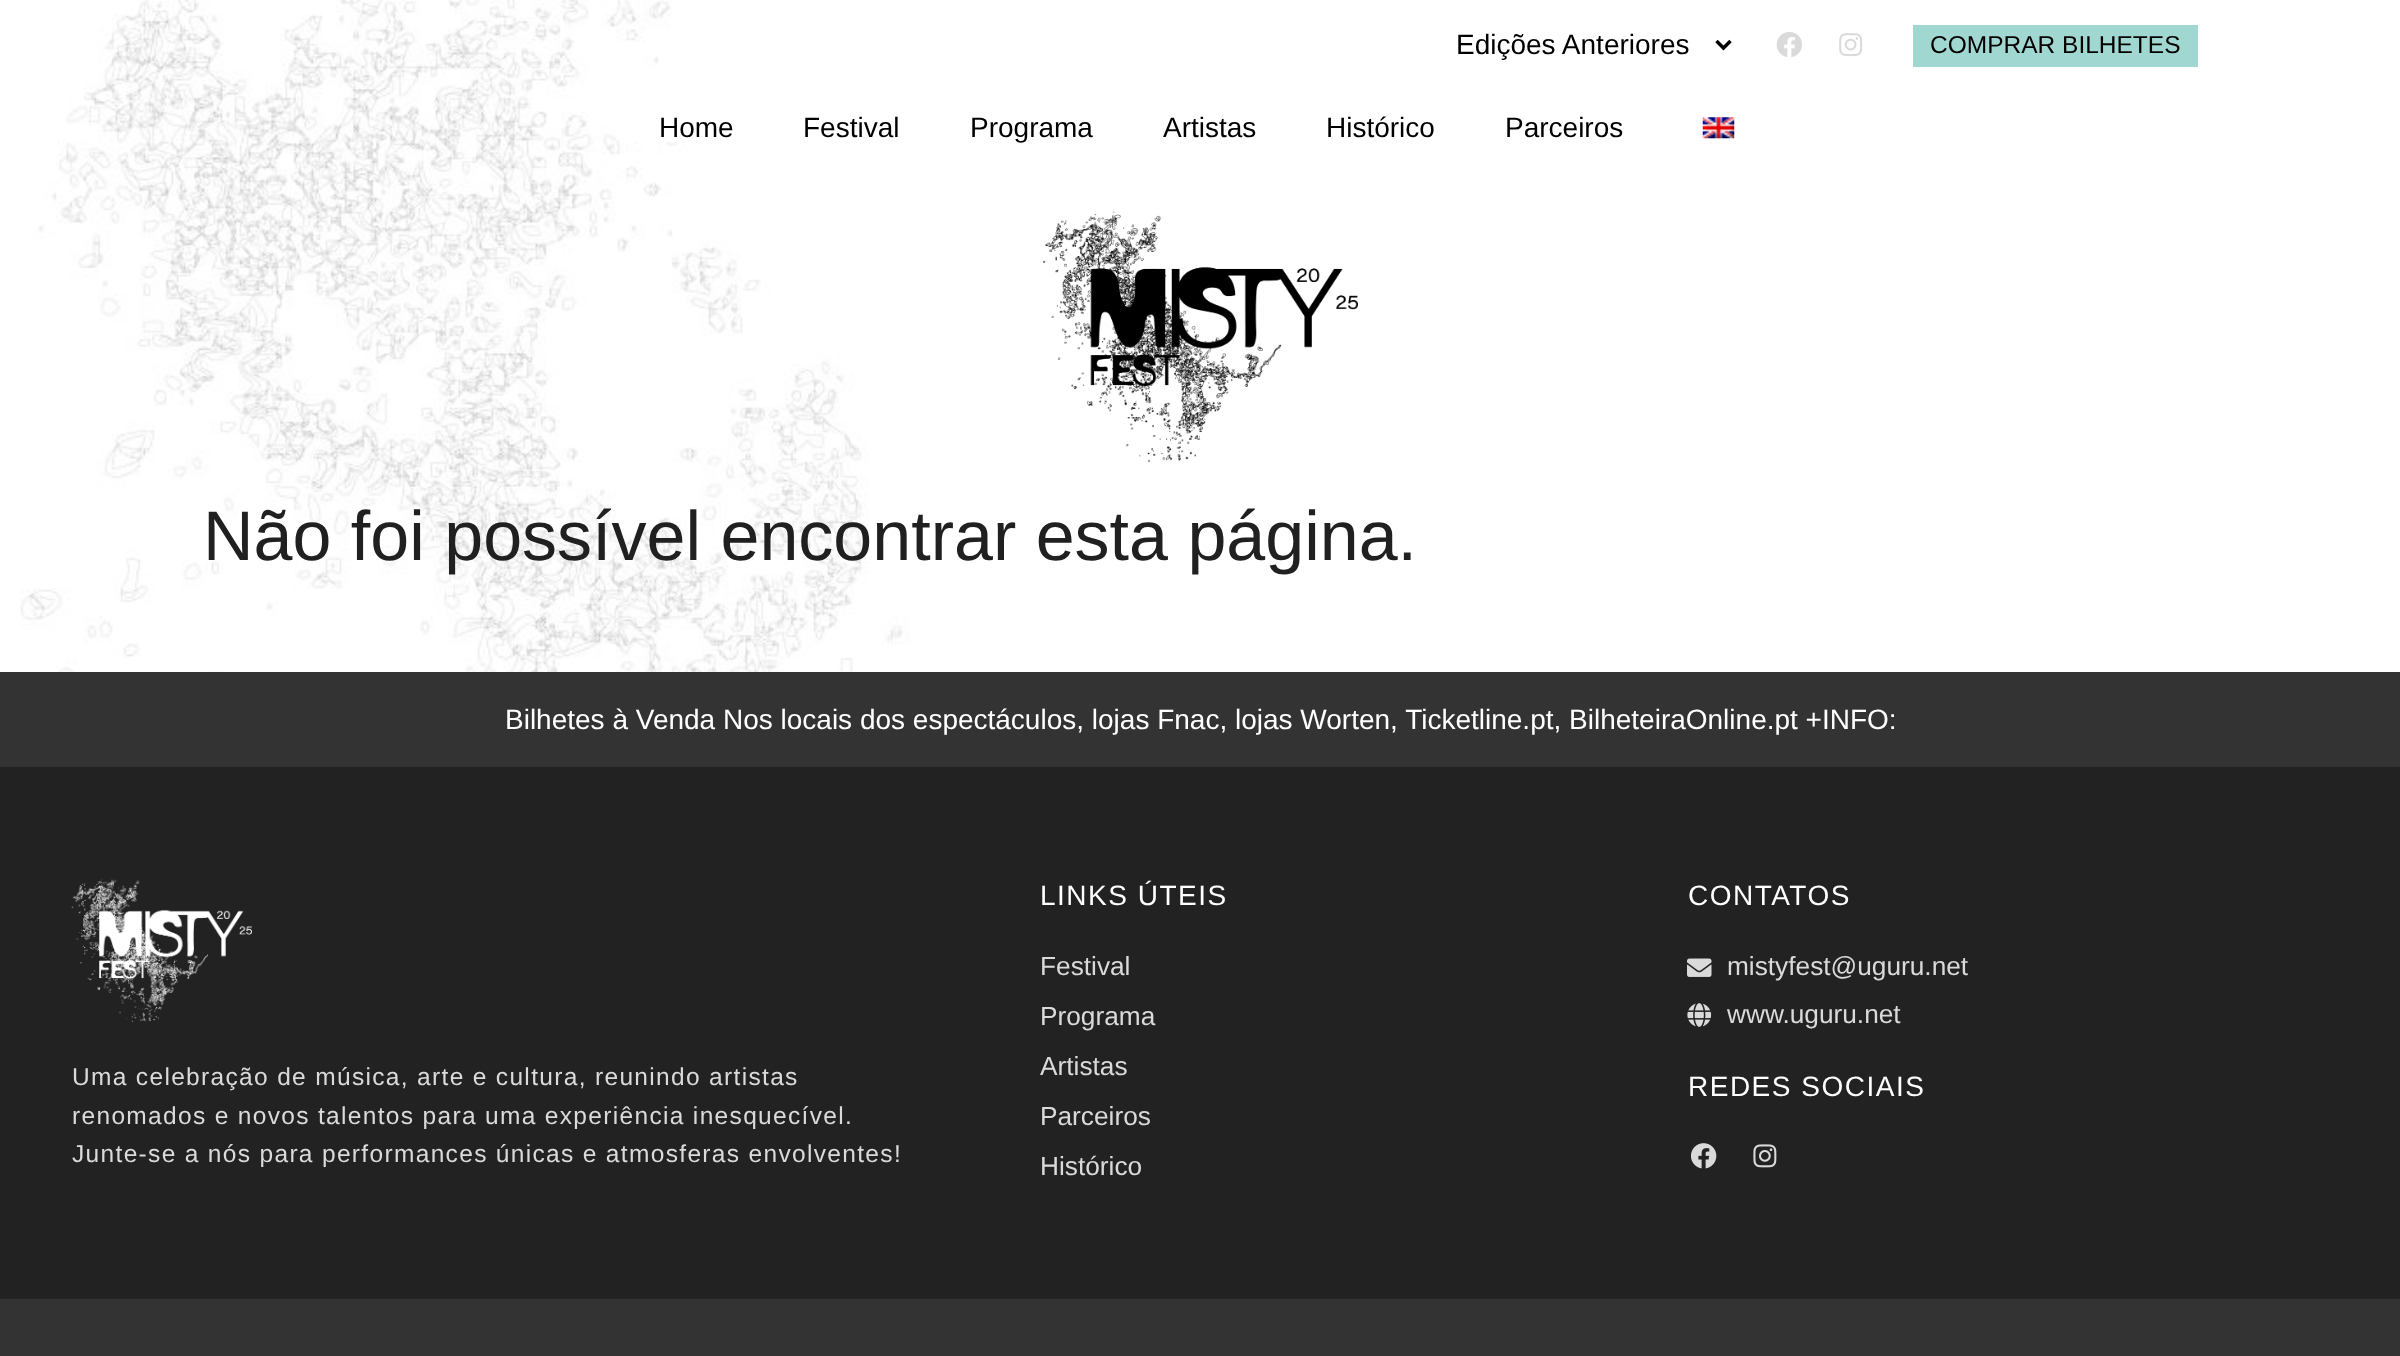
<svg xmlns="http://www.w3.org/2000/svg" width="2400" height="1356">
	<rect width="100%" height="100%" fill="#FFFFFF" />
	<image x="20" y="0" width="1002" height="672" href="assets/img1.png" />
	<path d="M1716.5 41L1723.5 48L1730.5 41" fill="none" stroke="#000000" stroke-width="3.5" />
	<text x="1456" y="54" font-family="Liberation Sans" font-size="28" fill="#000000">Edições Anteriores</text>
	<image x="1776" y="32" width="26" height="25" href="assets/img2.png" />
	<image x="1839" y="33" width="24" height="24" href="assets/img3.png" />
	<rect x="1913" y="25" width="285" height="42" fill="#A1D7D1" />
	<text x="1930" y="53" font-family="Liberation Sans" font-size="24.5" fill="#000000">COMPRAR BILHETES</text>
	<rect x="623" y="126" width="63" height="16" fill="#FFFFFF" />
	<g font-family="Liberation Sans" font-size="28" fill="#000000">
		<text x="659" y="137">Home</text>
		<text x="803" y="137">Festival</text>
		<text x="970" y="137">Programa</text>
		<text x="1163" y="137">Artistas</text>
		<text x="1326" y="137">Histórico</text>
		<text x="1505" y="137">Parceiros</text>
	</g>
	<image x="1702" y="117" width="33" height="22" href="assets/img4.png" />
	<image x="1043" y="211" width="315" height="251" href="assets/img5.png" />
	<text x="203" y="560" font-family="Liberation Sans" font-size="70" fill="#202020">Não foi possível encontrar esta página.</text>
	<rect x="0" y="672" width="2400" height="95" fill="#333333" />
	<text x="505" y="729" font-family="Liberation Sans" font-size="28" fill="#FFFFFF">Bilhetes à Venda Nos locais dos espectáculos, lojas Fnac, lojas Worten, Ticketline.pt, BilheteiraOnline.pt +INFO:</text>
	<rect x="0" y="767" width="2400" height="532" fill="#222222" />
	<text x="1040" y="905" font-family="Liberation Sans" font-size="28" letter-spacing="1.5" fill="#FFFFFF">LINKS ÚTEIS</text>
	<g font-family="Liberation Sans" font-size="26.25" fill="#DADADA">
		<text x="1040" y="975">Festival</text>
		<text x="1040" y="1025">Programa</text>
		<text x="1040" y="1075">Artistas</text>
		<text x="1040" y="1125">Parceiros</text>
		<text x="1040" y="1175">Histórico</text>
	</g>
	<text x="1688" y="905" font-family="Liberation Sans" font-size="28" letter-spacing="1.5" fill="#FFFFFF">CONTATOS</text>
	<image x="1687" y="958" width="25" height="19" href="assets/img6.png" />
	<text x="1727" y="975" font-family="Liberation Sans" font-size="26.25" fill="#DADADA">mistyfest@uguru.net</text>
	<image x="1687" y="1003" width="25" height="24" href="assets/img7.png" />
	<text x="1727" y="1023" font-family="Liberation Sans" font-size="26.25" fill="#DADADA">www.uguru.net</text>
	<text x="1688" y="1096" font-family="Liberation Sans" font-size="28" letter-spacing="1.5" fill="#FFFFFF">REDES SOCIAIS</text>
	<image x="1691" y="1143" width="26" height="26" href="assets/img8.png" />
	<image x="1753" y="1144" width="24" height="24" href="assets/img9.png" />
	<image x="71" y="878" width="181" height="144" href="assets/img10.png" />
	<g font-family="Liberation Sans" font-size="24.5" letter-spacing="1.33" fill="#DADADA">
		<text x="72" y="1085">Uma celebração de música, arte e cultura, reunindo artistas</text>
		<text x="72" y="1124">renomados e novos talentos para uma experiência inesquecível.</text>
		<text x="72" y="1162">Junte-se a nós para performances únicas e atmosferas envolventes!</text>
	</g>
	<rect x="0" y="1299" width="2400" height="57" fill="#333333" />
</svg>
